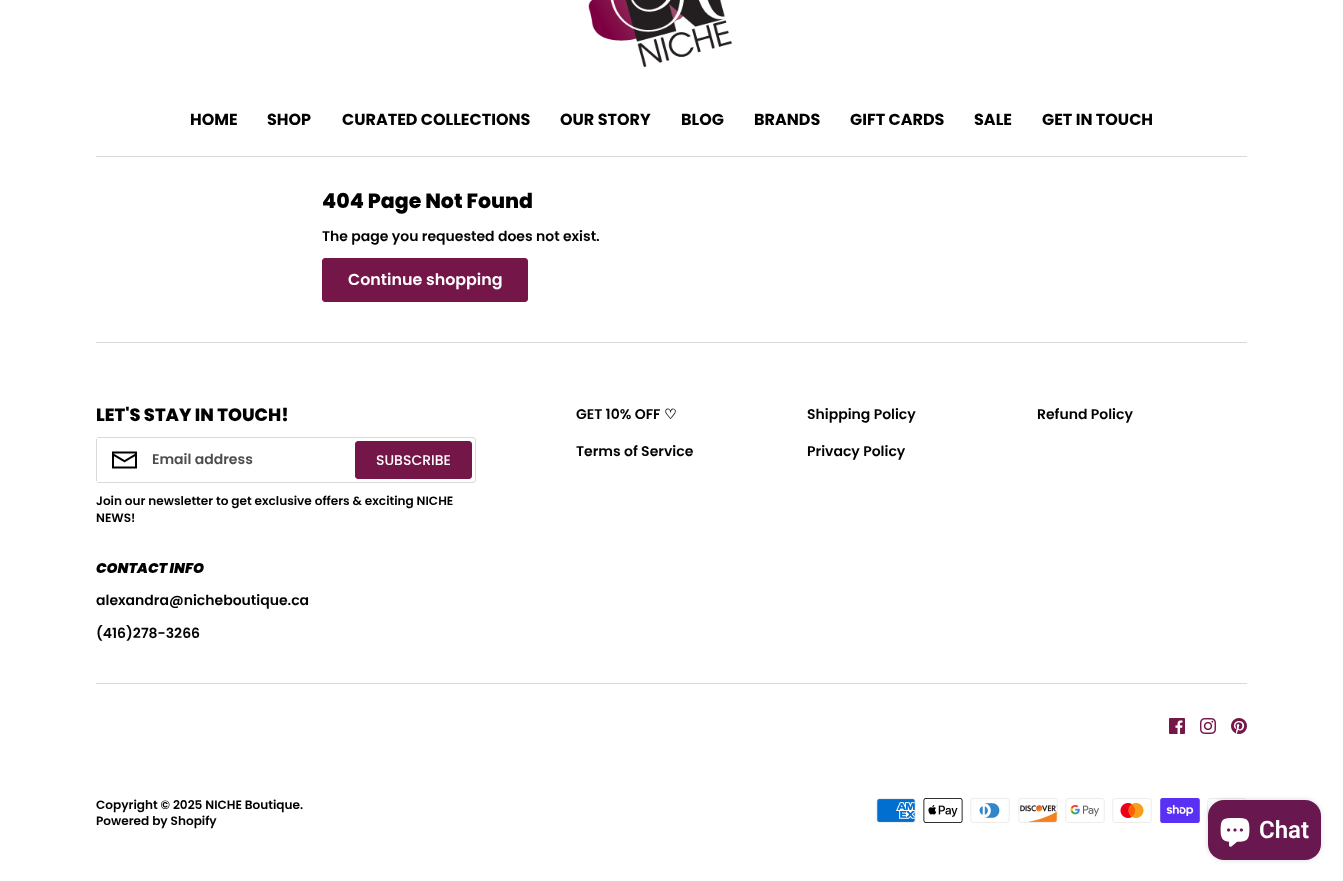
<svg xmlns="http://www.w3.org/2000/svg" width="1343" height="881">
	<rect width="100%" height="100%" fill="#FFFFFF" />
	<image x="588" y="0" width="144" height="68" href="assets/img1.png" />
	<rect x="96" y="156" width="1151" height="1" fill="#D9D9D9" />
	<g font-family="Poppins" font-size="16" font-weight="700" fill="#000000">
		<text x="190" y="125">HOME</text>
		<text x="267" y="125">SHOP</text>
		<text x="342" y="125">CURATED COLLECTIONS</text>
		<text x="560" y="125">OUR STORY</text>
		<text x="681" y="125">BLOG</text>
		<text x="754" y="125">BRANDS</text>
		<text x="850" y="125">GIFT CARDS</text>
		<text x="974" y="125">SALE</text>
		<text x="1042" y="125">GET IN TOUCH</text>
	</g>
	<text x="322" y="208" font-family="Poppins" font-size="20.5" font-weight="800" fill="#000000">404 Page Not Found</text>
	<text x="322" y="241" font-family="Poppins" font-size="14" font-weight="600" fill="#000000">The page you requested does not exist.</text>
	<rect x="322.5" y="258.5" width="205" height="43" rx="2.5" fill="#741748" stroke="#741748" />
	<text x="348" y="285" font-family="Poppins" font-size="15.9" font-weight="600" fill="#FFFFFF">Continue shopping</text>
	<rect x="96" y="342" width="1151" height="1" fill="#D9D9D9" />
	<text x="96" y="421" font-family="Poppins" font-size="17.75" font-weight="800" fill="#000000">LET'S STAY IN TOUCH!</text>
	<rect x="96.5" y="437.5" width="379" height="45" rx="2.5" fill="none" stroke="#D9D9D9" />
	<image x="112" y="451" width="25" height="18" href="assets/img2.png" />
	<rect x="97" y="438" width="2" height="44" fill="#FFFFFF" />
	<text x="152" y="464" font-family="Poppins" font-size="14" font-weight="600" fill="#4D4D4D">Email address</text>
	<rect x="355.5" y="441.5" width="116" height="37" rx="2.5" fill="#741748" stroke="#741748" />
	<text x="376" y="465" font-family="Poppins" font-size="14" font-weight="500" fill="#FFFFFF">SUBSCRIBE</text>
	<g font-family="Poppins" font-size="12.1" font-weight="600" fill="#000000">
		<text x="96" y="505">Join our newsletter to get exclusive offers &amp; exciting NICHE</text>
		<text x="96" y="522">NEWS!</text>
	</g>
	<text x="96" y="573" font-family="Poppins" font-size="14" font-weight="900" font-style="italic" fill="#000000">CONTACT INFO</text>
	<g font-family="Poppins" font-size="14" font-weight="600" fill="#000000">
		<text x="96" y="605">alexandra@nicheboutique.ca</text>
		<text x="96" y="638">(416)278-3266</text>
		<text x="576" y="419">GET 10% OFF</text>
	</g>
	<text x="664" y="419" font-family="DejaVu Sans" font-size="14" font-weight="700" fill="#000000">♡</text>
	<g font-family="Poppins" font-size="14" font-weight="600" fill="#000000">
		<text x="807" y="419">Shipping Policy</text>
		<text x="1037" y="419">Refund Policy</text>
		<text x="576" y="456">Terms of Service</text>
		<text x="807" y="456">Privacy Policy</text>
	</g>
	<rect x="96" y="683" width="1151" height="1" fill="#D9D9D9" />
	<image x="1169" y="718" width="16" height="16" href="assets/img3.png" />
	<image x="1200" y="718" width="16" height="16" href="assets/img4.png" />
	<image x="1231" y="718" width="16" height="16" href="assets/img5.png" />
	<g font-family="Poppins" font-size="12.1" font-weight="600" fill="#000000">
		<text x="96" y="809">Copyright © 2025 NICHE Boutique.</text>
		<text x="96" y="825">Powered by Shopify</text>
	</g>
	<image x="876" y="798" width="40" height="25" href="assets/img6.png" />
	<image x="923" y="798" width="40" height="25" href="assets/img7.png" />
	<image x="970" y="798" width="40" height="25" href="assets/img8.png" />
	<image x="1018" y="798" width="40" height="25" href="assets/img9.png" />
	<image x="1065" y="798" width="40" height="25" href="assets/img10.png" />
	<image x="1112" y="798" width="40" height="25" href="assets/img11.png" />
	<image x="1160" y="798" width="40" height="25" href="assets/img12.png" />
	<image x="1207" y="798" width="39" height="23" href="assets/img13.png" />
	<rect x="1208" y="800" width="113" height="60" rx="16" fill="#000000" fill-opacity="0.15" filter="blur(2.5px)" />
	<rect x="1208" y="800" width="113" height="60" rx="16" fill="#69174F" />
	<image x="1220" y="818" width="30" height="29" href="assets/img14.png" />
	<text x="1259" y="838" font-family="Roboto" font-size="24" font-weight="600" fill="#FFFFFF">Chat</text>
</svg>
